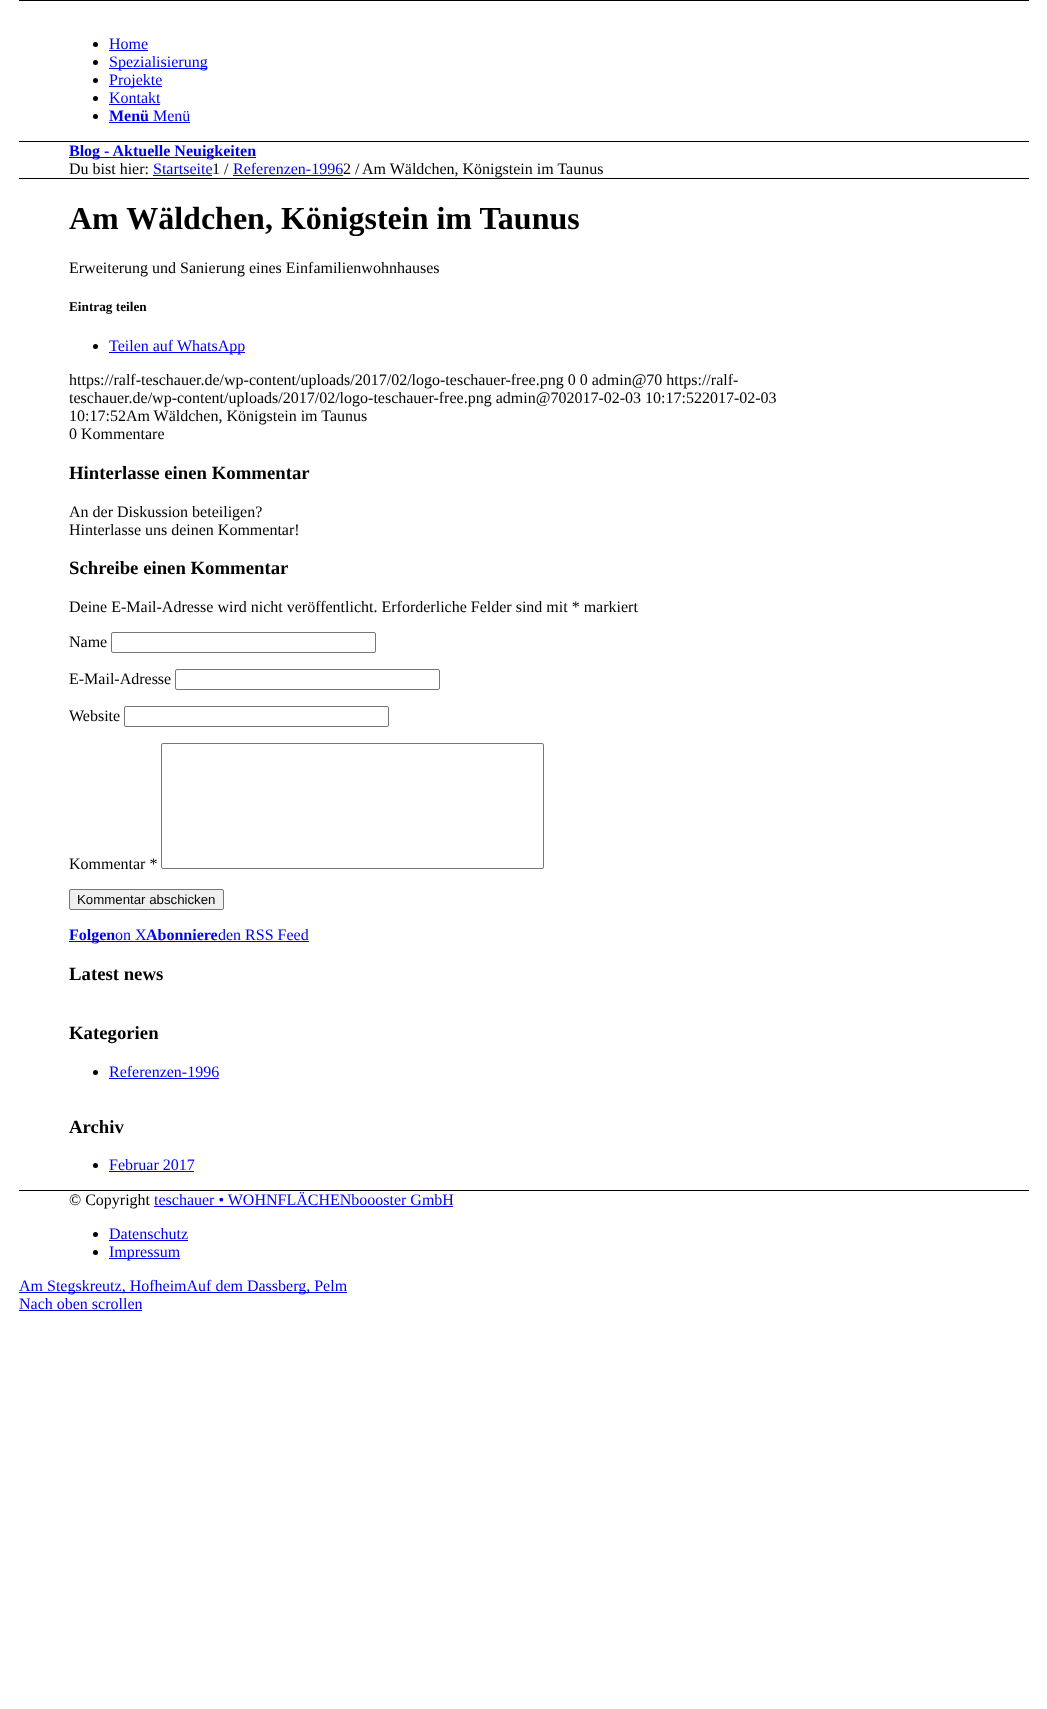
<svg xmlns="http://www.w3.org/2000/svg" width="1047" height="1709">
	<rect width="100%" height="100%" fill="#FFFFFF" />
	<rect x="19" y="0" width="1010" height="1" fill="#000000" />
	<circle cx="95.5" cy="44.5" r="2.5" fill="#000000" />
	<text x="109" y="49" font-family="Liberation Serif" font-size="16" fill="#0000EE">Home</text>
	<rect x="109" y="50" width="39" height="1" fill="#0000EE" />
	<circle cx="95.5" cy="62.5" r="2.5" fill="#000000" />
	<rect x="109" y="68" width="98" height="1" fill="#0000EE" />
	<text x="109" y="67" font-family="Liberation Serif" font-size="16" fill="#0000EE">Spezialisierung</text>
	<circle cx="95.5" cy="80.5" r="2.5" fill="#000000" />
	<rect x="109" y="86" width="53" height="1" fill="#0000EE" />
	<text x="109" y="85" font-family="Liberation Serif" font-size="16" fill="#0000EE">Projekte</text>
	<circle cx="95.5" cy="98.5" r="2.5" fill="#000000" />
	<text x="109" y="103" font-family="Liberation Serif" font-size="16" fill="#0000EE">Kontakt</text>
	<rect x="109" y="104" width="51" height="1" fill="#0000EE" />
	<circle cx="95.5" cy="116.5" r="2.5" fill="#000000" />
	<text x="109" y="121" font-family="Liberation Serif" font-size="16" font-weight="700" fill="#0000EE">Menü</text>
	<rect x="109" y="122" width="81" height="1" fill="#0000EE" />
	<text x="153" y="121" font-family="Liberation Serif" font-size="16" fill="#0000EE">Menü</text>
	<rect x="19" y="141" width="1010" height="1" fill="#000000" />
	<rect x="69" y="157" width="187" height="1" fill="#0000EE" />
	<text x="69" y="156" font-family="Liberation Serif" font-size="16" font-weight="700" fill="#0000EE">Blog - Aktuelle Neuigkeiten</text>
	<text x="69" y="174" font-family="Liberation Serif" font-size="16" fill="#000000">Du bist hier:</text>
	<text x="153" y="174" font-family="Liberation Serif" font-size="16" fill="#0000EE">Startseite</text>
	<rect x="153" y="175" width="59" height="1" fill="#0000EE" />
	<text x="212" y="174" font-family="Liberation Serif" font-size="16" fill="#000000">1 /</text>
	<text x="233" y="174" font-family="Liberation Serif" font-size="16" fill="#0000EE">Referenzen-1996</text>
	<text x="343" y="174" font-family="Liberation Serif" font-size="16" fill="#000000">2 /</text>
	<rect x="233" y="175" width="110" height="1" fill="#0000EE" />
	<text x="362" y="174" font-family="Liberation Serif" font-size="16" fill="#000000">Am Wäldchen, Königstein im Taunus</text>
	<rect x="19" y="178" width="1010" height="1" fill="#000000" />
	<text x="69" y="229" font-family="Liberation Serif" font-size="32" font-weight="700" fill="#000000">Am Wäldchen, Königstein im Taunus</text>
	<text x="69" y="273" font-family="Liberation Serif" font-size="16" fill="#000000">Erweiterung und Sanierung eines Einfamilienwohnhauses</text>
	<text x="69" y="311" font-family="Liberation Serif" font-size="13.25" font-weight="700" fill="#000000">Eintrag teilen</text>
	<circle cx="95.5" cy="346.5" r="2.5" fill="#000000" />
	<rect x="109" y="352" width="136" height="1" fill="#0000EE" />
	<text x="109" y="351" font-family="Liberation Serif" font-size="16" fill="#0000EE">Teilen auf WhatsApp</text>
	<g font-family="Liberation Serif" font-size="16" fill="#000000">
		<text x="69" y="385">https://ralf-teschauer.de/wp-content/uploads/2017/02/logo-teschauer-free.png 0 0 admin@70 https://ralf-</text>
		<text x="69" y="403">teschauer.de/wp-content/uploads/2017/02/logo-teschauer-free.png admin@702017-02-03 10:17:522017-02-03</text>
		<text x="69" y="421">10:17:52Am Wäldchen, Königstein im Taunus</text>
		<text x="69" y="439">0 Kommentare</text>
	</g>
	<text x="69" y="479" font-family="Liberation Serif" font-size="18.75" font-weight="700" fill="#000000">Hinterlasse einen Kommentar</text>
	<g font-family="Liberation Serif" font-size="16" fill="#000000">
		<text x="69" y="517">An der Diskussion beteiligen?</text>
		<text x="69" y="535">Hinterlasse uns deinen Kommentar!</text>
	</g>
	<text x="69" y="574" font-family="Liberation Serif" font-size="18.75" font-weight="700" fill="#000000">Schreibe einen Kommentar</text>
	<g font-family="Liberation Serif" font-size="16" fill="#000000">
		<text x="69" y="612">Deine E-Mail-Adresse wird nicht veröffentlicht. Erforderliche Felder sind mit * markiert</text>
		<text x="69" y="647">Name</text>
	</g>
	<rect x="111.5" y="632.5" width="264" height="20" rx="1.5" fill="none" stroke="#767676" />
	<text x="69" y="684" font-family="Liberation Serif" font-size="16" fill="#000000">E-Mail-Adresse</text>
	<rect x="175.5" y="669.5" width="264" height="20" rx="1.5" fill="none" stroke="#767676" />
	<text x="69" y="721" font-family="Liberation Serif" font-size="16" fill="#000000">Website</text>
	<rect x="124.5" y="706.5" width="264" height="20" rx="1.5" fill="none" stroke="#767676" />
	<text x="69" y="869" font-family="Liberation Serif" font-size="16" fill="#000000">Kommentar *</text>
	<rect x="161.5" y="743.5" width="382" height="125" rx="1.5" fill="none" stroke="#767676" />
	<rect x="69.5" y="889.5" width="154" height="20" rx="1.5" fill="#EFEFEF" stroke="#767676" />
	<text x="77" y="904" font-family="Liberation Sans" font-size="13.25" fill="#000000">Kommentar abschicken</text>
	<rect x="69" y="941" width="240" height="1" fill="#0000EE" />
	<text x="69" y="940" font-family="Liberation Serif" font-size="16" font-weight="700" fill="#0000EE">Folgen</text>
	<text x="115" y="940" font-family="Liberation Serif" font-size="16" fill="#0000EE">on X</text>
	<text x="146" y="940" font-family="Liberation Serif" font-size="16" font-weight="700" fill="#0000EE">Abonniere</text>
	<text x="218" y="940" font-family="Liberation Serif" font-size="16" fill="#0000EE">den RSS Feed</text>
	<g font-family="Liberation Serif" font-size="18.75" font-weight="700" fill="#000000">
		<text x="69" y="980">Latest news</text>
		<text x="69" y="1039">Kategorien</text>
	</g>
	<circle cx="95.5" cy="1072.5" r="2.5" fill="#000000" />
	<text x="109" y="1077" font-family="Liberation Serif" font-size="16" fill="#0000EE">Referenzen-1996</text>
	<rect x="109" y="1078" width="110" height="1" fill="#0000EE" />
	<text x="69" y="1133" font-family="Liberation Serif" font-size="18.75" font-weight="700" fill="#000000">Archiv</text>
	<circle cx="95.5" cy="1165.5" r="2.5" fill="#000000" />
	<text x="109" y="1170" font-family="Liberation Serif" font-size="16" fill="#0000EE">Februar 2017</text>
	<rect x="109" y="1171" width="85" height="1" fill="#0000EE" />
	<rect x="19" y="1190" width="1010" height="1" fill="#000000" />
	<text x="69" y="1205" font-family="Liberation Serif" font-size="16" fill="#000000">© Copyright</text>
	<rect x="154" y="1206" width="299" height="1" fill="#0000EE" />
	<text x="154" y="1205" font-family="Liberation Serif" font-size="16" fill="#0000EE">teschauer • WOHNFLÄCHENboooster GmbH</text>
	<circle cx="95.5" cy="1234.5" r="2.5" fill="#000000" />
	<text x="109" y="1239" font-family="Liberation Serif" font-size="16" fill="#0000EE">Datenschutz</text>
	<rect x="109" y="1240" width="79" height="1" fill="#0000EE" />
	<circle cx="95.5" cy="1252.5" r="2.5" fill="#000000" />
	<rect x="109" y="1258" width="71" height="1" fill="#0000EE" />
	<text x="109" y="1257" font-family="Liberation Serif" font-size="16" fill="#0000EE">Impressum</text>
	<rect x="19" y="1292" width="328" height="1" fill="#0000EE" />
	<g font-family="Liberation Serif" font-size="16" fill="#0000EE">
		<text x="19" y="1291">Am Stegskreutz, HofheimAuf dem Dassberg, Pelm</text>
		<text x="19" y="1309">Nach oben scrollen</text>
	</g>
	<rect x="19" y="1310" width="123" height="1" fill="#0000EE" />
</svg>
